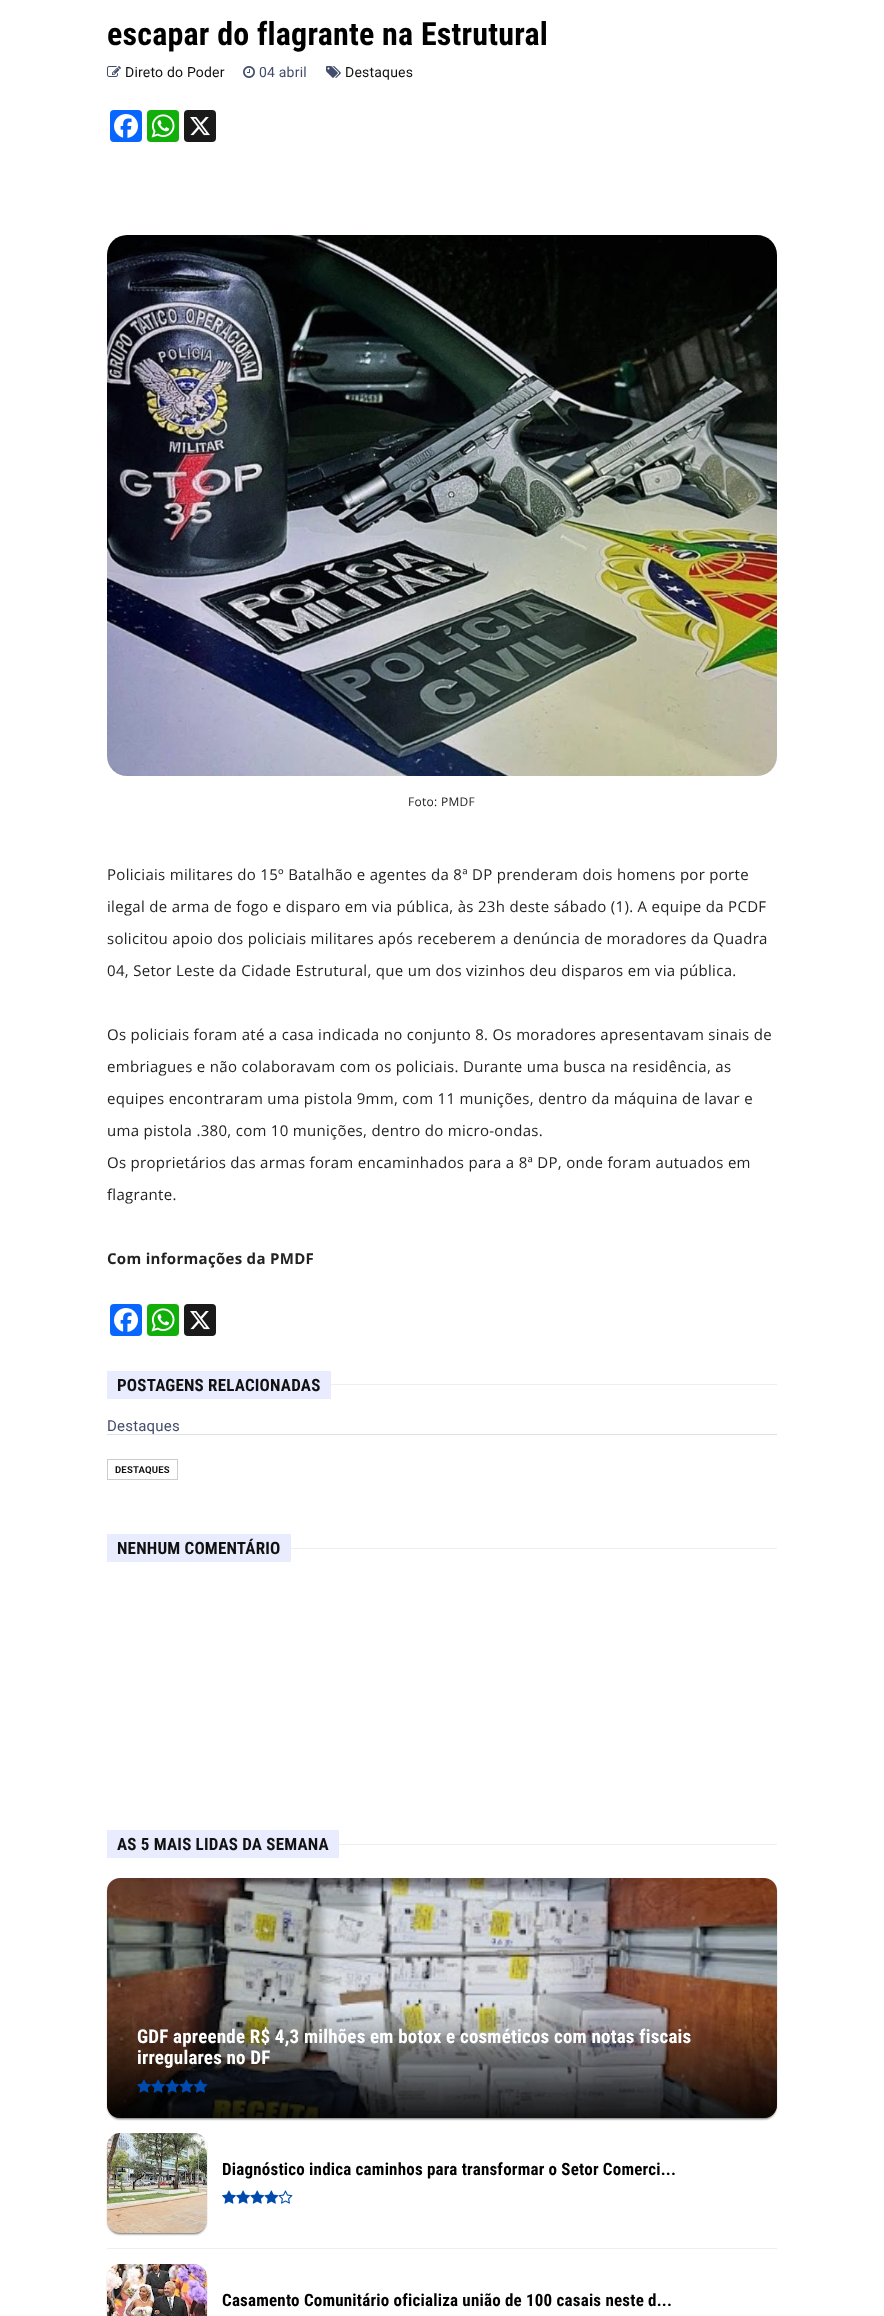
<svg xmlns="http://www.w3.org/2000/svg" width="884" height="2316">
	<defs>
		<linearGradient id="g1" gradientUnits="userSpaceOnUse" x1="442" y1="2118" x2="442" y2="2006"><stop offset="0" stop-color="#000000" stop-opacity="0.9" /><stop offset="1" stop-color="#000000" stop-opacity="0" /></linearGradient>
	</defs>
	<rect width="100%" height="100%" fill="#FFFFFF" />
	<text x="107" y="45" font-family="Roboto Condensed" font-size="32" font-weight="700" letter-spacing="0.2" fill="#000000">escapar do flagrante na Estrutural</text>
	<image x="107" y="66" width="14" height="11" href="assets/img1.png" />
	<text x="125" y="77" font-family="Roboto" font-size="14" letter-spacing="0.2" fill="#111111">Direto do Poder</text>
	<image x="243" y="66" width="12" height="12" href="assets/img2.png" />
	<text x="259" y="77" font-family="Roboto" font-size="14" letter-spacing="0.2" fill="#444C6C">04 abril</text>
	<image x="326" y="66" width="15" height="12" href="assets/img3.png" />
	<text x="345" y="77" font-family="Roboto" font-size="14" letter-spacing="0.2" fill="#111111">Destaques</text>
	<rect x="110" y="110" width="32" height="32" rx="4" fill="#0866FF" />
	<image x="114" y="114" width="24" height="24" href="assets/img4.png" />
	<rect x="147" y="110" width="32" height="32" rx="4" fill="#12AF0A" />
	<image x="151" y="114" width="24" height="24" href="assets/img5.png" />
	<rect x="184" y="110" width="32" height="32" rx="4" fill="#1A1A1A" />
	<image x="190" y="117" width="20" height="19" href="assets/img6.png" />
	<image x="107" y="235" width="670" height="541" href="assets/img7.png" />
	<text x="408" y="806" font-family="Open Sans" font-size="12" letter-spacing="0.3" fill="#222222">Foto: PMDF</text>
	<g font-family="Open Sans" font-size="15" letter-spacing="0.3" fill="#222222">
		<text x="107" y="880">Policiais militares do 15º Batalhão e agentes da 8ª DP prenderam dois homens por porte</text>
		<text x="107" y="912">ilegal de arma de fogo e disparo em via pública, às 23h deste sábado (1). A equipe da PCDF</text>
		<text x="107" y="944">solicitou apoio dos policiais militares após receberem a denúncia de moradores da Quadra</text>
		<text x="107" y="976">04, Setor Leste da Cidade Estrutural, que um dos vizinhos deu disparos em via pública.</text>
		<text x="107" y="1040">Os policiais foram até a casa indicada no conjunto 8. Os moradores apresentavam sinais de</text>
		<text x="107" y="1072">embriagues e não colaboravam com os policiais. Durante uma busca na residência, as</text>
		<text x="107" y="1104">equipes encontraram uma pistola 9mm, com 11 munições, dentro da máquina de lavar e</text>
		<text x="107" y="1136">uma pistola .380, com 10 munições, dentro do micro-ondas.</text>
		<text x="107" y="1168">Os proprietários das armas foram encaminhados para a 8ª DP, onde foram autuados em</text>
		<text x="107" y="1200">flagrante.</text>
	</g>
	<text x="107" y="1264" font-family="Open Sans" font-size="15" font-weight="700" letter-spacing="0.3" fill="#222222">Com informações da PMDF</text>
	<rect x="110" y="1304" width="32" height="32" rx="4" fill="#0866FF" />
	<image x="114" y="1308" width="24" height="24" href="assets/img4.png" />
	<rect x="147" y="1304" width="32" height="32" rx="4" fill="#12AF0A" />
	<image x="151" y="1308" width="24" height="24" href="assets/img5.png" />
	<rect x="184" y="1304" width="32" height="32" rx="4" fill="#1A1A1A" />
	<image x="190" y="1311" width="20" height="19" href="assets/img6.png" />
	<rect x="107" y="1371" width="224" height="28" fill="#E9ECFF" />
	<text x="117" y="1391" font-family="Roboto Condensed" font-size="17" font-weight="700" letter-spacing="0.2" fill="#111111">POSTAGENS RELACIONADAS</text>
	<rect x="331" y="1384" width="446" height="1" fill="#EEEEEE" />
	<rect x="107" y="1434" width="670" height="1" fill="#DEE2E6" />
	<text x="107" y="1431" font-family="Roboto" font-size="15" letter-spacing="0.2" fill="#444C6C">Destaques</text>
	<rect x="107.5" y="1459.5" width="70" height="20" fill="none" stroke="#CCCCCC" />
	<text x="115" y="1473" font-family="Roboto" font-size="9.5" font-weight="700" letter-spacing="0.2" fill="#111111">DESTAQUES</text>
	<rect x="107" y="1534" width="184" height="28" fill="#E9ECFF" />
	<text x="117" y="1554" font-family="Roboto Condensed" font-size="17" font-weight="700" letter-spacing="0.2" fill="#111111">NENHUM COMENTÁRIO</text>
	<rect x="291" y="1548" width="486" height="1" fill="#EEEEEE" />
	<rect x="107" y="1830" width="232" height="28" fill="#E9ECFF" />
	<text x="117" y="1850" font-family="Roboto Condensed" font-size="17" font-weight="700" letter-spacing="0.2" fill="#111111">AS 5 MAIS LIDAS DA SEMANA</text>
	<rect x="339" y="1844" width="438" height="1" fill="#EEEEEE" />
	<rect x="108" y="1881" width="668" height="238" rx="12" fill="#000000" fill-opacity="0.6" filter="blur(1px)" />
	<image x="107" y="1878" width="670" height="240" href="assets/img8.png" />
	<path d="M107 2006H777V2105C777 2112 771 2118 764 2118H120C113 2118 107 2112 107 2105Z" fill="url(#g1)" />
	<g font-family="Roboto Condensed" font-size="19" font-weight="700" letter-spacing="0.2" fill="#FFFFFF">
		<text x="137" y="2043">GDF apreende R$ 4,3 milhões em botox e cosméticos com notas fiscais</text>
		<text x="137" y="2064">irregulares no DF</text>
	</g>
	<image x="137" y="2079" width="71" height="14" href="assets/img9.png" />
	<rect x="107" y="2248" width="670" height="1" fill="#EEEEEE" />
	<rect x="108" y="2136" width="98" height="98" rx="12" fill="#000000" fill-opacity="0.6" filter="blur(1px)" />
	<image x="107" y="2133" width="100" height="100" href="assets/img10.png" />
	<text x="222" y="2175" font-family="Roboto Condensed" font-size="17" font-weight="700" letter-spacing="0.2" fill="#000000">Diagnóstico indica caminhos para transformar o Setor Comerci...</text>
	<image x="222" y="2190" width="71" height="14" href="assets/img11.png" />
	<rect x="108" y="2267" width="98" height="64" rx="12" fill="#000000" fill-opacity="0.6" filter="blur(1px)" />
	<image x="107" y="2264" width="100" height="52" href="assets/img12.png" />
	<text x="222" y="2306" font-family="Roboto Condensed" font-size="17" font-weight="700" letter-spacing="0.2" fill="#000000">Casamento Comunitário oficializa união de 100 casais neste d...</text>
</svg>
